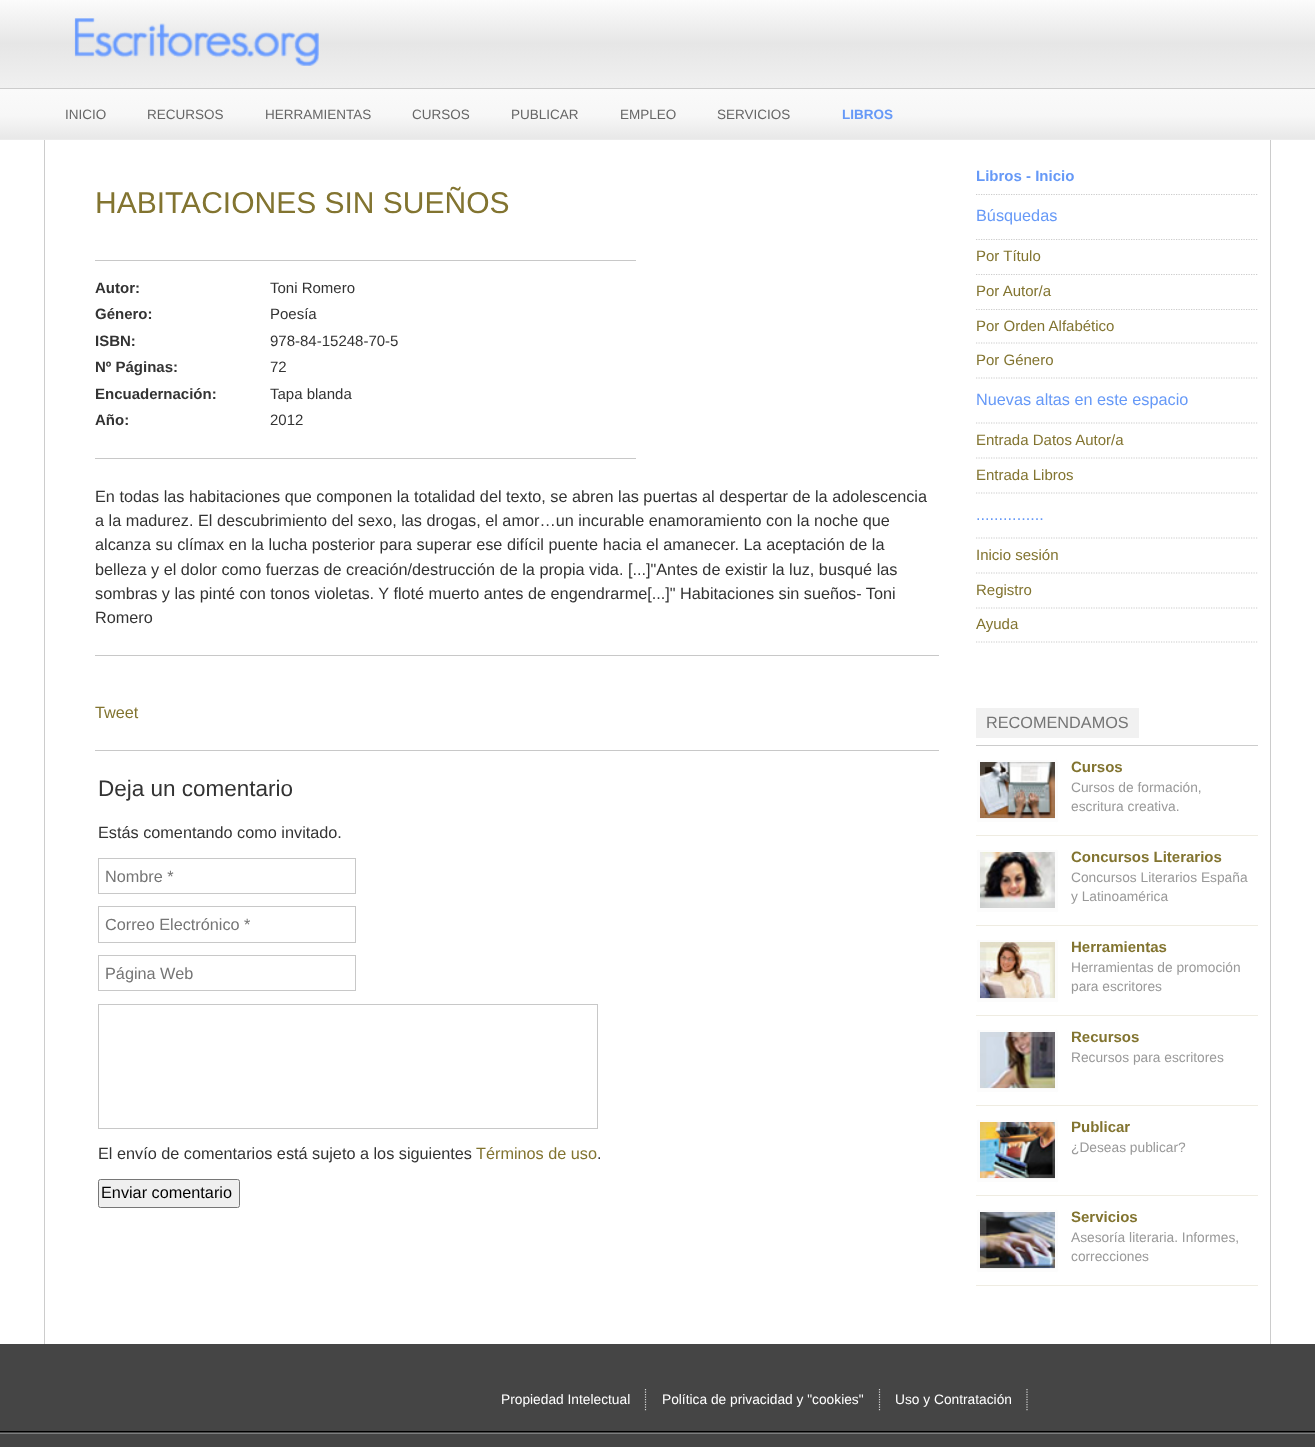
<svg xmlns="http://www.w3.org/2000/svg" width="1315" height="1447">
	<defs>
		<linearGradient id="g1" gradientUnits="userSpaceOnUse" x1="658" y1="-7.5" x2="658" y2="88"><stop offset="0" stop-color="#FFFFFF" /><stop offset="0.53" stop-color="#E6E6E6" /><stop offset="1" stop-color="#F0F0F0" /></linearGradient>
		<linearGradient id="g2" gradientUnits="userSpaceOnUse" x1="658" y1="89" x2="658" y2="139"><stop offset="0" stop-color="#FAFAFA" /><stop offset="0.53" stop-color="#F7F7F7" /><stop offset="1" stop-color="#E8E8E8" /></linearGradient>
	</defs>
	<rect width="100%" height="100%" fill="#FFFFFF" />
	<rect x="0" y="0" width="1315" height="88" fill="url(#g1)" />
	<image x="74" y="18" width="245" height="48" href="assets/img1.png" />
	<rect x="0" y="89" width="1315" height="50" fill="url(#g2)" />
	<rect x="0" y="88" width="1315" height="1" fill="#CCCCCC" />
	<rect x="0" y="139" width="1315" height="1" fill="#ECECEC" />
	<g font-family="Liberation Sans" font-size="13.5" fill="#666666">
		<text x="65" y="119">INICIO</text>
		<text x="147" y="119">RECURSOS</text>
		<text x="265" y="119">HERRAMIENTAS</text>
		<text x="412" y="119">CURSOS</text>
		<text x="511" y="119">PUBLICAR</text>
		<text x="620" y="119">EMPLEO</text>
		<text x="717" y="119">SERVICIOS</text>
	</g>
	<text x="842" y="119" font-family="Liberation Sans" font-size="13.5" font-weight="700" fill="#6699F7">LIBROS</text>
	<rect x="1270" y="140" width="1" height="1204" fill="#CCCCCC" />
	<rect x="44" y="140" width="1" height="1204" fill="#CCCCCC" />
	<text x="95" y="213" font-family="Liberation Sans" font-size="30" fill="#827430">HABITACIONES SIN SUEÑOS</text>
	<rect x="95" y="260" width="541" height="1" fill="#C8C8C8" />
	<rect x="95" y="458" width="541" height="1" fill="#C8C8C8" />
	<text x="95" y="293" font-family="Liberation Sans" font-size="15" font-weight="700" fill="#333333">Autor:</text>
	<text x="270" y="293" font-family="Liberation Sans" font-size="15" fill="#333333">Toni Romero</text>
	<text x="95" y="319" font-family="Liberation Sans" font-size="15" font-weight="700" fill="#333333">Género:</text>
	<text x="270" y="319" font-family="Liberation Sans" font-size="15" fill="#333333">Poesía</text>
	<text x="95" y="346" font-family="Liberation Sans" font-size="15" font-weight="700" fill="#333333">ISBN:</text>
	<text x="270" y="346" font-family="Liberation Sans" font-size="15" fill="#333333">978-84-15248-70-5</text>
	<text x="95" y="372" font-family="Liberation Sans" font-size="15" font-weight="700" fill="#333333">Nº Páginas:</text>
	<text x="270" y="372" font-family="Liberation Sans" font-size="15" fill="#333333">72</text>
	<text x="95" y="399" font-family="Liberation Sans" font-size="15" font-weight="700" fill="#333333">Encuadernación:</text>
	<text x="270" y="399" font-family="Liberation Sans" font-size="15" fill="#333333">Tapa blanda</text>
	<text x="95" y="425" font-family="Liberation Sans" font-size="15" font-weight="700" fill="#333333">Año:</text>
	<text x="270" y="425" font-family="Liberation Sans" font-size="15" fill="#333333">2012</text>
	<g font-family="Liberation Sans" font-size="16.25" fill="#333333">
		<text x="95" y="502">En todas las habitaciones que componen la totalidad del texto, se abren las puertas al despertar de la adolescencia</text>
		<text x="95" y="526">a la madurez. El descubrimiento del sexo, las drogas, el amor…un incurable enamoramiento con la noche que</text>
		<text x="95" y="550">alcanza su clímax en la lucha posterior para superar ese difícil puente hacia el amanecer. La aceptación de la</text>
		<text x="95" y="575">belleza y el dolor como fuerzas de creación/destrucción de la propia vida. [...]"Antes de existir la luz, busqué las</text>
		<text x="95" y="599">sombras y las pinté con tonos violetas. Y floté muerto antes de engendrarme[...]" Habitaciones sin sueños- Toni</text>
		<text x="95" y="623">Romero</text>
	</g>
	<rect x="95" y="655" width="844" height="1" fill="#C8C8C8" />
	<text x="95" y="718" font-family="Liberation Sans" font-size="16.25" fill="#827430">Tweet</text>
	<rect x="95" y="750" width="844" height="1" fill="#C8C8C8" />
	<text x="98" y="796" font-family="Liberation Sans" font-size="22.5" fill="#333333">Deja un comentario</text>
	<text x="98" y="838" font-family="Liberation Sans" font-size="16.25" fill="#333333">Estás comentando como invitado.</text>
	<rect x="98.5" y="858.5" width="257" height="35" fill="none" stroke="#C8C8C8" />
	<text x="105" y="882" font-family="Liberation Sans" font-size="16.25" fill="#757575">Nombre *</text>
	<rect x="98.5" y="906.5" width="257" height="36" fill="none" stroke="#C8C8C8" />
	<text x="105" y="930" font-family="Liberation Sans" font-size="16.25" fill="#757575">Correo Electrónico *</text>
	<rect x="98.5" y="955.5" width="257" height="35" fill="none" stroke="#C8C8C8" />
	<text x="105" y="979" font-family="Liberation Sans" font-size="16.25" fill="#757575">Página Web</text>
	<rect x="98.5" y="1004.5" width="499" height="124" fill="none" stroke="#C8C8C8" />
	<text x="98" y="1159" font-family="Liberation Sans" font-size="16.25" fill="#333333">El envío de comentarios está sujeto a los siguientes</text>
	<text x="476" y="1159" font-family="Liberation Sans" font-size="16.25" fill="#827430">Términos de uso</text>
	<text x="597" y="1159" font-family="Liberation Sans" font-size="16.25" fill="#333333">.</text>
	<rect x="98.5" y="1179.5" width="141" height="28" rx="2" fill="#EFEFEF" stroke="#767676" />
	<text x="101" y="1198" font-family="Liberation Sans" font-size="16.25" fill="#000000">Enviar comentario</text>
	<path d="M976 194.5H1257.5" fill="none" stroke="#CCCCCC" stroke-width="1.2" stroke-dasharray="1.25 1.25" />
	<text x="976" y="181" font-family="Liberation Sans" font-size="15" font-weight="700" fill="#6699F7">Libros - Inicio</text>
	<path d="M976 239.5H1257.5" fill="none" stroke="#CCCCCC" stroke-width="1.2" stroke-dasharray="1.25 1.25" />
	<text x="976" y="221" font-family="Liberation Sans" font-size="16.25" fill="#6699F7">Búsquedas</text>
	<path d="M976 274.5H1257.5" fill="none" stroke="#CCCCCC" stroke-width="1.2" stroke-dasharray="1.25 1.25" />
	<text x="976" y="261" font-family="Liberation Sans" font-size="15" fill="#827430">Por Título</text>
	<path d="M976 309.5H1257.5" fill="none" stroke="#CCCCCC" stroke-width="1.2" stroke-dasharray="1.25 1.25" />
	<text x="976" y="296" font-family="Liberation Sans" font-size="15" fill="#827430">Por Autor/a</text>
	<path d="M976 343H1257.5" fill="none" stroke="#CCCCCC" stroke-width="1.2" stroke-dasharray="1.25 1.25" />
	<text x="976" y="331" font-family="Liberation Sans" font-size="15" fill="#827430">Por Orden Alfabético</text>
	<path d="M976 378H1257.5" fill="none" stroke="#CCCCCC" stroke-width="1.2" stroke-dasharray="1.25 1.25" />
	<text x="976" y="365" font-family="Liberation Sans" font-size="15" fill="#827430">Por Género</text>
	<path d="M976 423H1257.5" fill="none" stroke="#CCCCCC" stroke-width="1.2" stroke-dasharray="1.25 1.25" />
	<text x="976" y="405" font-family="Liberation Sans" font-size="16.25" fill="#6699F7">Nuevas altas en este espacio</text>
	<path d="M976 458H1257.5" fill="none" stroke="#CCCCCC" stroke-width="1.2" stroke-dasharray="1.25 1.25" />
	<text x="976" y="445" font-family="Liberation Sans" font-size="15" fill="#827430">Entrada Datos Autor/a</text>
	<path d="M976 493H1257.5" fill="none" stroke="#CCCCCC" stroke-width="1.2" stroke-dasharray="1.25 1.25" />
	<text x="976" y="480" font-family="Liberation Sans" font-size="15" fill="#827430">Entrada Libros</text>
	<path d="M976 538H1257.5" fill="none" stroke="#CCCCCC" stroke-width="1.2" stroke-dasharray="1.25 1.25" />
	<text x="976" y="520" font-family="Liberation Sans" font-size="16.25" fill="#6699F7">...............</text>
	<path d="M976 573H1257.5" fill="none" stroke="#CCCCCC" stroke-width="1.2" stroke-dasharray="1.25 1.25" />
	<text x="976" y="560" font-family="Liberation Sans" font-size="15" fill="#827430">Inicio sesión</text>
	<path d="M976 608H1257.5" fill="none" stroke="#CCCCCC" stroke-width="1.2" stroke-dasharray="1.25 1.25" />
	<text x="976" y="595" font-family="Liberation Sans" font-size="15" fill="#827430">Registro</text>
	<path d="M976 642H1257.5" fill="none" stroke="#CCCCCC" stroke-width="1.2" stroke-dasharray="1.25 1.25" />
	<text x="976" y="629" font-family="Liberation Sans" font-size="15" fill="#827430">Ayuda</text>
	<rect x="976" y="708" width="163" height="30" fill="#F1F1F1" />
	<text x="986" y="728" font-family="Liberation Sans" font-size="16.25" fill="#757575">RECOMENDAMOS</text>
	<rect x="976" y="745" width="282" height="1" fill="#CCCCCC" />
	<rect x="976" y="835" width="282" height="1" fill="#EFECE1" />
	<rect x="976.5" y="759.5" width="82" height="63" rx="2" fill="#FCFCFC" stroke="#FFFFFF" />
	<image x="980" y="762" width="75" height="57" href="assets/img2.png" />
	<text x="1071" y="772" font-family="Liberation Sans" font-size="15" font-weight="700" fill="#827430">Cursos</text>
	<g font-family="Liberation Sans" font-size="13.75" fill="#999999">
		<text x="1071" y="792">Cursos de formación,</text>
		<text x="1071" y="811">escritura creativa.</text>
	</g>
	<rect x="976" y="925" width="282" height="1" fill="#EFECE1" />
	<rect x="976.5" y="849.5" width="82" height="63" rx="2" fill="#FCFCFC" stroke="#FFFFFF" />
	<image x="980" y="852" width="75" height="56" href="assets/img3.png" />
	<text x="1071" y="862" font-family="Liberation Sans" font-size="15" font-weight="700" fill="#827430">Concursos Literarios</text>
	<g font-family="Liberation Sans" font-size="13.75" fill="#999999">
		<text x="1071" y="882">Concursos Literarios España</text>
		<text x="1071" y="901">y Latinoamérica</text>
	</g>
	<rect x="976" y="1015" width="282" height="1" fill="#EFECE1" />
	<rect x="976.5" y="939.5" width="82" height="63" rx="2" fill="#FCFCFC" stroke="#FFFFFF" />
	<image x="980" y="942" width="75" height="57" href="assets/img4.png" />
	<text x="1071" y="952" font-family="Liberation Sans" font-size="15" font-weight="700" fill="#827430">Herramientas</text>
	<g font-family="Liberation Sans" font-size="13.75" fill="#999999">
		<text x="1071" y="972">Herramientas de promoción</text>
		<text x="1071" y="991">para escritores</text>
	</g>
	<rect x="976" y="1105" width="282" height="1" fill="#EFECE1" />
	<rect x="976.5" y="1029.5" width="82" height="63" rx="2" fill="#FCFCFC" stroke="#FFFFFF" />
	<image x="980" y="1032" width="75" height="57" href="assets/img5.png" />
	<text x="1071" y="1042" font-family="Liberation Sans" font-size="15" font-weight="700" fill="#827430">Recursos</text>
	<text x="1071" y="1062" font-family="Liberation Sans" font-size="13.75" fill="#999999">Recursos para escritores</text>
	<rect x="976" y="1195" width="282" height="1" fill="#EFECE1" />
	<rect x="976.5" y="1119.5" width="82" height="63" rx="2" fill="#FCFCFC" stroke="#FFFFFF" />
	<image x="980" y="1122" width="75" height="57" href="assets/img6.png" />
	<text x="1071" y="1132" font-family="Liberation Sans" font-size="15" font-weight="700" fill="#827430">Publicar</text>
	<text x="1071" y="1152" font-family="Liberation Sans" font-size="13.75" fill="#999999">¿Deseas publicar?</text>
	<rect x="976" y="1285" width="282" height="1" fill="#EFECE1" />
	<rect x="976.5" y="1209.5" width="82" height="63" rx="2" fill="#FCFCFC" stroke="#FFFFFF" />
	<image x="980" y="1212" width="75" height="57" href="assets/img7.png" />
	<text x="1071" y="1222" font-family="Liberation Sans" font-size="15" font-weight="700" fill="#827430">Servicios</text>
	<g font-family="Liberation Sans" font-size="13.75" fill="#999999">
		<text x="1071" y="1242">Asesoría literaria. Informes,</text>
		<text x="1071" y="1261">correcciones</text>
	</g>
	<rect x="0" y="1344" width="1315" height="89" fill="#454545" />
	<rect x="0" y="1431" width="1315" height="1" fill="#000000" />
	<path d="M645.5 1389V1411" fill="none" stroke="#D3D4D4" stroke-width="1.2" stroke-dasharray="1.25 1.25" />
	<text x="501" y="1404" font-family="Liberation Sans" font-size="13.75" fill="#FFFFFF">Propiedad Intelectual</text>
	<path d="M879.5 1389V1411" fill="none" stroke="#D3D4D4" stroke-width="1.2" stroke-dasharray="1.25 1.25" />
	<text x="662" y="1404" font-family="Liberation Sans" font-size="13.75" fill="#FFFFFF">Política de privacidad y "cookies"</text>
	<path d="M1027 1389V1411" fill="none" stroke="#D3D4D4" stroke-width="1.2" stroke-dasharray="1.25 1.25" />
	<text x="895" y="1404" font-family="Liberation Sans" font-size="13.75" fill="#FFFFFF">Uso y Contratación</text>
	<rect x="0" y="1434" width="1315" height="13" fill="#454545" />
	<rect x="0" y="1433" width="1315" height="1" fill="#7D7E7F" />
</svg>
